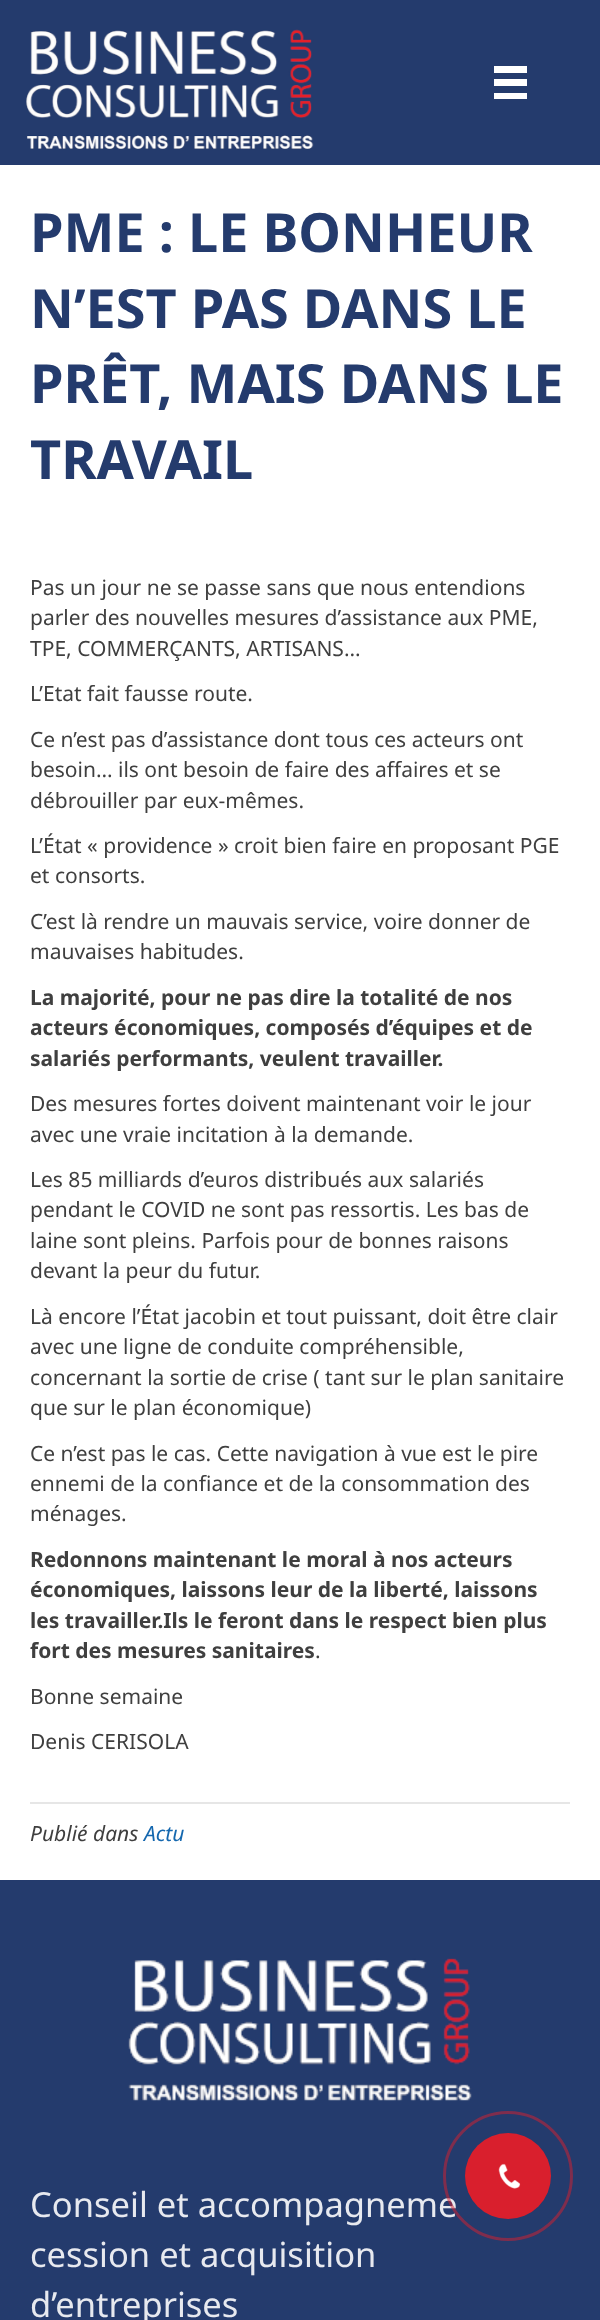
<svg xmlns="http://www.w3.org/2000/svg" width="600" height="2320">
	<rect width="100%" height="100%" fill="#FFFFFF" />
	<rect x="0" y="0" width="600" height="165" fill="#243B6D" />
	<image x="26" y="29" width="288" height="120" href="assets/img1.png" />
	<rect x="494" y="66" width="33" height="7" fill="#FFFFFF" />
	<rect x="494" y="79" width="33" height="7" fill="#FFFFFF" />
	<rect x="494" y="93" width="33" height="6" fill="#FFFFFF" />
	<g font-family="Noto Sans" font-size="54" font-weight="700" fill="#243B6D">
		<text x="30" y="252">PME : LE BONHEUR</text>
		<text x="30" y="328">N’EST PAS DANS LE</text>
		<text x="30" y="403">PRÊT, MAIS DANS LE</text>
		<text x="30" y="479">TRAVAIL</text>
	</g>
	<g font-family="Noto Sans" font-size="21" fill="#3F3F3F">
		<text x="30" y="595">Pas un jour ne se passe sans que nous entendions</text>
		<text x="30" y="625">parler des nouvelles mesures d’assistance aux PME,</text>
		<text x="30" y="656">TPE, COMMERÇANTS, ARTISANS…</text>
		<text x="30" y="701">L’Etat fait fausse route.</text>
		<text x="30" y="747">Ce n’est pas d’assistance dont tous ces acteurs ont</text>
		<text x="30" y="777">besoin… ils ont besoin de faire des affaires et se</text>
		<text x="30" y="808">débrouiller par eux-mêmes.</text>
		<text x="30" y="853">L’État « providence » croit bien faire en proposant PGE</text>
		<text x="30" y="883">et consorts.</text>
		<text x="30" y="929">C’est là rendre un mauvais service, voire donner de</text>
		<text x="30" y="959">mauvaises habitudes.</text>
	</g>
	<g font-family="Noto Sans" font-size="21" font-weight="700" fill="#3F3F3F">
		<text x="30" y="1005">La majorité, pour ne pas dire la totalité de nos</text>
		<text x="30" y="1035">acteurs économiques, composés d’équipes et de</text>
		<text x="30" y="1066">salariés performants, veulent travailler.</text>
	</g>
	<g font-family="Noto Sans" font-size="21" fill="#3F3F3F">
		<text x="30" y="1111">Des mesures fortes doivent maintenant voir le jour</text>
		<text x="30" y="1142">avec une vraie incitation à la demande.</text>
		<text x="30" y="1187">Les 85 milliards d’euros distribués aux salariés</text>
		<text x="30" y="1217">pendant le COVID ne sont pas ressortis. Les bas de</text>
		<text x="30" y="1248">laine sont pleins. Parfois pour de bonnes raisons</text>
		<text x="30" y="1278">devant la peur du futur.</text>
		<text x="30" y="1324">Là encore l’État jacobin et tout puissant, doit être clair</text>
		<text x="30" y="1354">avec une ligne de conduite compréhensible,</text>
		<text x="30" y="1385">concernant la sortie de crise ( tant sur le plan sanitaire</text>
		<text x="30" y="1415">que sur le plan économique)</text>
		<text x="30" y="1461">Ce n’est pas le cas. Cette navigation à vue est le pire</text>
		<text x="30" y="1491">ennemi de la confiance et de la consommation des</text>
		<text x="30" y="1521">ménages.</text>
	</g>
	<g font-family="Noto Sans" font-size="21" font-weight="700" fill="#3F3F3F">
		<text x="30" y="1567">Redonnons maintenant le moral à nos acteurs</text>
		<text x="30" y="1597">économiques, laissons leur de la liberté, laissons</text>
		<text x="30" y="1628">les travailler.Ils le feront dans le respect bien plus</text>
		<text x="30" y="1658">fort des mesures sanitaires</text>
	</g>
	<g font-family="Noto Sans" font-size="21" fill="#3F3F3F">
		<text x="315" y="1658">.</text>
		<text x="30" y="1704">Bonne semaine</text>
		<text x="30" y="1749">Denis CERISOLA</text>
	</g>
	<rect x="30" y="1802" width="540" height="2" fill="#E6E6E6" />
	<text x="30" y="1841" font-family="Noto Sans" font-size="21" font-style="italic" fill="#3F3F3F">Publié dans</text>
	<text x="144" y="1841" font-family="Noto Sans" font-size="21" font-style="italic" fill="#1568AF">Actu</text>
	<rect x="0" y="1880" width="600" height="440" fill="#243B6D" />
	<image x="128" y="1958" width="344" height="143" href="assets/img2.png" />
	<g font-family="Noto Sans" font-size="34.5" fill="#E7E9EF">
		<text x="30" y="2217">Conseil et accompagneme</text>
		<text x="30" y="2267">cession et acquisition</text>
		<text x="30" y="2317">d’entreprises</text>
	</g>
	<circle cx="508" cy="2176" r="63.5" fill="none" stroke="#D91F2D" stroke-opacity="0.5" stroke-width="3" />
	<circle cx="508" cy="2176" r="43" fill="#D91F2D" />
	<image x="498" y="2163" width="23" height="26" href="assets/img3.png" />
</svg>
